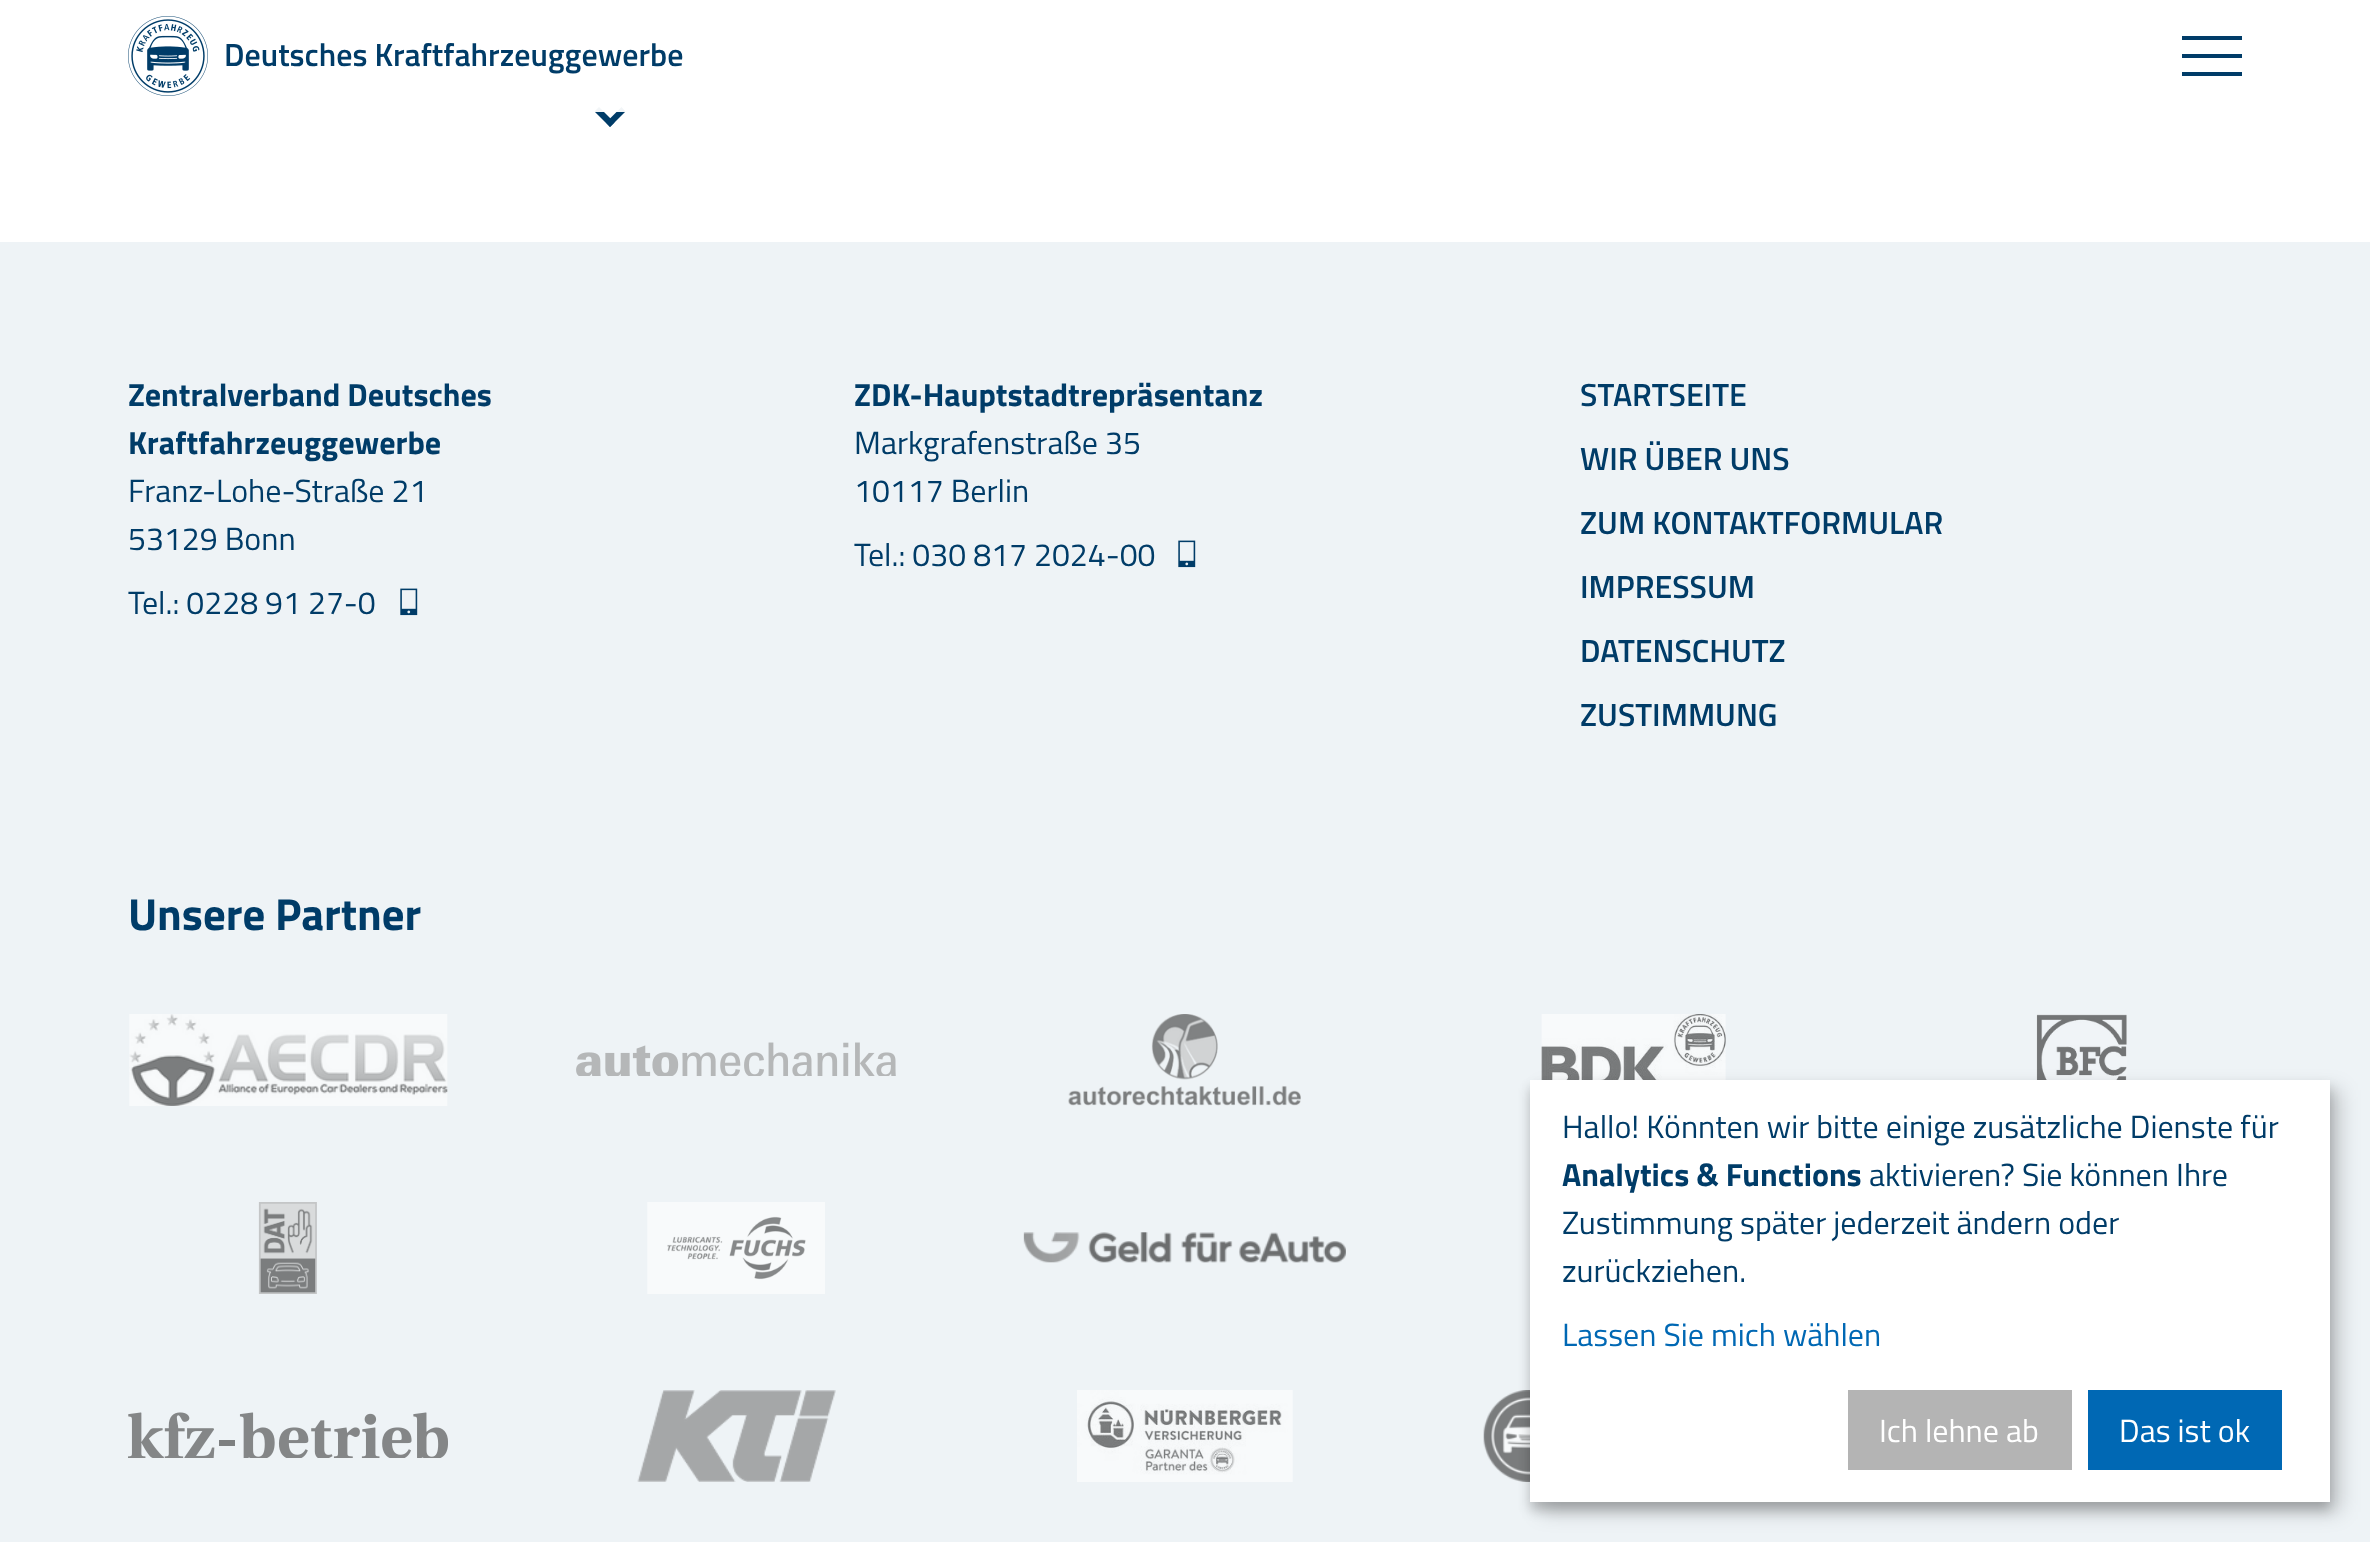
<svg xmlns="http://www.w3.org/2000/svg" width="2370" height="1542">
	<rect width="100%" height="100%" fill="#FFFFFF" />
	<image x="128" y="16" width="80" height="80" href="assets/img1.png" />
	<text x="224" y="66" font-family="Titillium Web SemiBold" font-size="32" font-weight="600" fill="#003C68">Deutsches Kraftfahrzeuggewerbe</text>
	<rect x="2182" y="36" width="60" height="4" fill="#003C68" />
	<rect x="2182" y="54" width="60" height="4" fill="#003C68" />
	<rect x="2182" y="72" width="60" height="4" fill="#003C68" />
	<path d="M621.5 107L625.5 111.5L610 127L606 122.5Z" fill="#003C68" />
	<path d="M599 107L614.5 122.5L610 127L594.5 111.5Z" fill="#003C68" />
	<rect x="594" y="107" width="32" height="5" fill="#FFFFFF" fill-opacity="0.95" />
	<rect x="0" y="242" width="2370" height="1300" fill="#EEF3F6" />
	<g font-family="Titillium Web" font-size="32" font-weight="700" fill="#003C68">
		<text x="128" y="406">Zentralverband Deutsches</text>
		<text x="128" y="454">Kraftfahrzeuggewerbe</text>
	</g>
	<g font-family="Titillium Web" font-size="32" fill="#003C68">
		<text x="128" y="502">Franz-Lohe-Straße 21</text>
		<text x="128" y="550">53129 Bonn</text>
		<text x="128" y="614">Tel.: 0228 91 27-0</text>
	</g>
	<image x="400" y="588" width="18" height="28" href="assets/img2.png" />
	<text x="854" y="406" font-family="Titillium Web" font-size="32" font-weight="700" fill="#003C68">ZDK-Hauptstadtrepräsentanz</text>
	<g font-family="Titillium Web" font-size="32" fill="#003C68">
		<text x="854" y="454">Markgrafenstraße 35</text>
		<text x="854" y="502">10117 Berlin</text>
		<text x="854" y="566">Tel.: 030 817 2024-00</text>
	</g>
	<image x="1178" y="540" width="18" height="28" href="assets/img2.png" />
	<g font-family="Titillium Web SemiBold" font-size="32" font-weight="600" fill="#003C68">
		<text x="1580" y="406">STARTSEITE</text>
		<text x="1580" y="470">WIR ÜBER UNS</text>
		<text x="1580" y="534">ZUM KONTAKTFORMULAR</text>
		<text x="1580" y="598">IMPRESSUM</text>
		<text x="1580" y="662">DATENSCHUTZ</text>
		<text x="1580" y="726">ZUSTIMMUNG</text>
	</g>
	<text x="128" y="930" font-family="Titillium Web" font-size="44.75" font-weight="700" fill="#003C68">Unsere Partner</text>
	<image x="129" y="1014" width="319" height="92" href="assets/img3.png" />
	<image x="576" y="1042" width="320" height="34" href="assets/img4.png" />
	<image x="1068" y="1014" width="233" height="92" href="assets/img5.png" />
	<image x="1541" y="1014" width="185" height="66" href="assets/img6.png" />
	<image x="2036" y="1014" width="91" height="66" href="assets/img7.png" />
	<image x="258" y="1202" width="59" height="92" href="assets/img8.png" />
	<image x="647" y="1202" width="178" height="92" href="assets/img9.png" />
	<image x="1023" y="1232" width="323" height="31" href="assets/img10.png" />
	<image x="128" y="1412" width="320" height="46" href="assets/img11.png" />
	<image x="637" y="1390" width="199" height="92" href="assets/img12.png" />
	<image x="1077" y="1390" width="216" height="92" href="assets/img13.png" />
	<image x="1483" y="1390" width="47" height="92" href="assets/img14.png" />
	<rect x="1540" y="1090" width="800" height="422" fill="#000000" fill-opacity="0.19" filter="blur(10px)" />
	<rect x="1530" y="1088" width="800" height="422" fill="#000000" fill-opacity="0.2" filter="blur(6px)" />
	<rect x="1530" y="1080" width="800" height="422" fill="#FFFFFF" />
	<text x="1562" y="1138" font-family="Titillium Web" font-size="32" fill="#003C68">Hallo! Könnten wir bitte einige zusätzliche Dienste für</text>
	<text x="1562" y="1186" font-family="Titillium Web" font-size="32" font-weight="700" fill="#003C68">Analytics &amp; Functions</text>
	<g font-family="Titillium Web" font-size="32" fill="#003C68">
		<text x="1869" y="1186">aktivieren? Sie können Ihre</text>
		<text x="1562" y="1234">Zustimmung später jederzeit ändern oder</text>
		<text x="1562" y="1282">zurückziehen.</text>
	</g>
	<text x="1562" y="1346" font-family="Titillium Web" font-size="32" fill="#0068B4">Lassen Sie mich wählen</text>
	<rect x="1848" y="1390" width="224" height="80" fill="#B4B4B4" />
	<text x="1879" y="1442" font-family="Titillium Web" font-size="32" fill="#FFFFFF">Ich lehne ab</text>
	<rect x="2088" y="1390" width="194" height="80" fill="#0068B4" />
	<text x="2119" y="1442" font-family="Titillium Web" font-size="32" fill="#FFFFFF">Das ist ok</text>
</svg>
